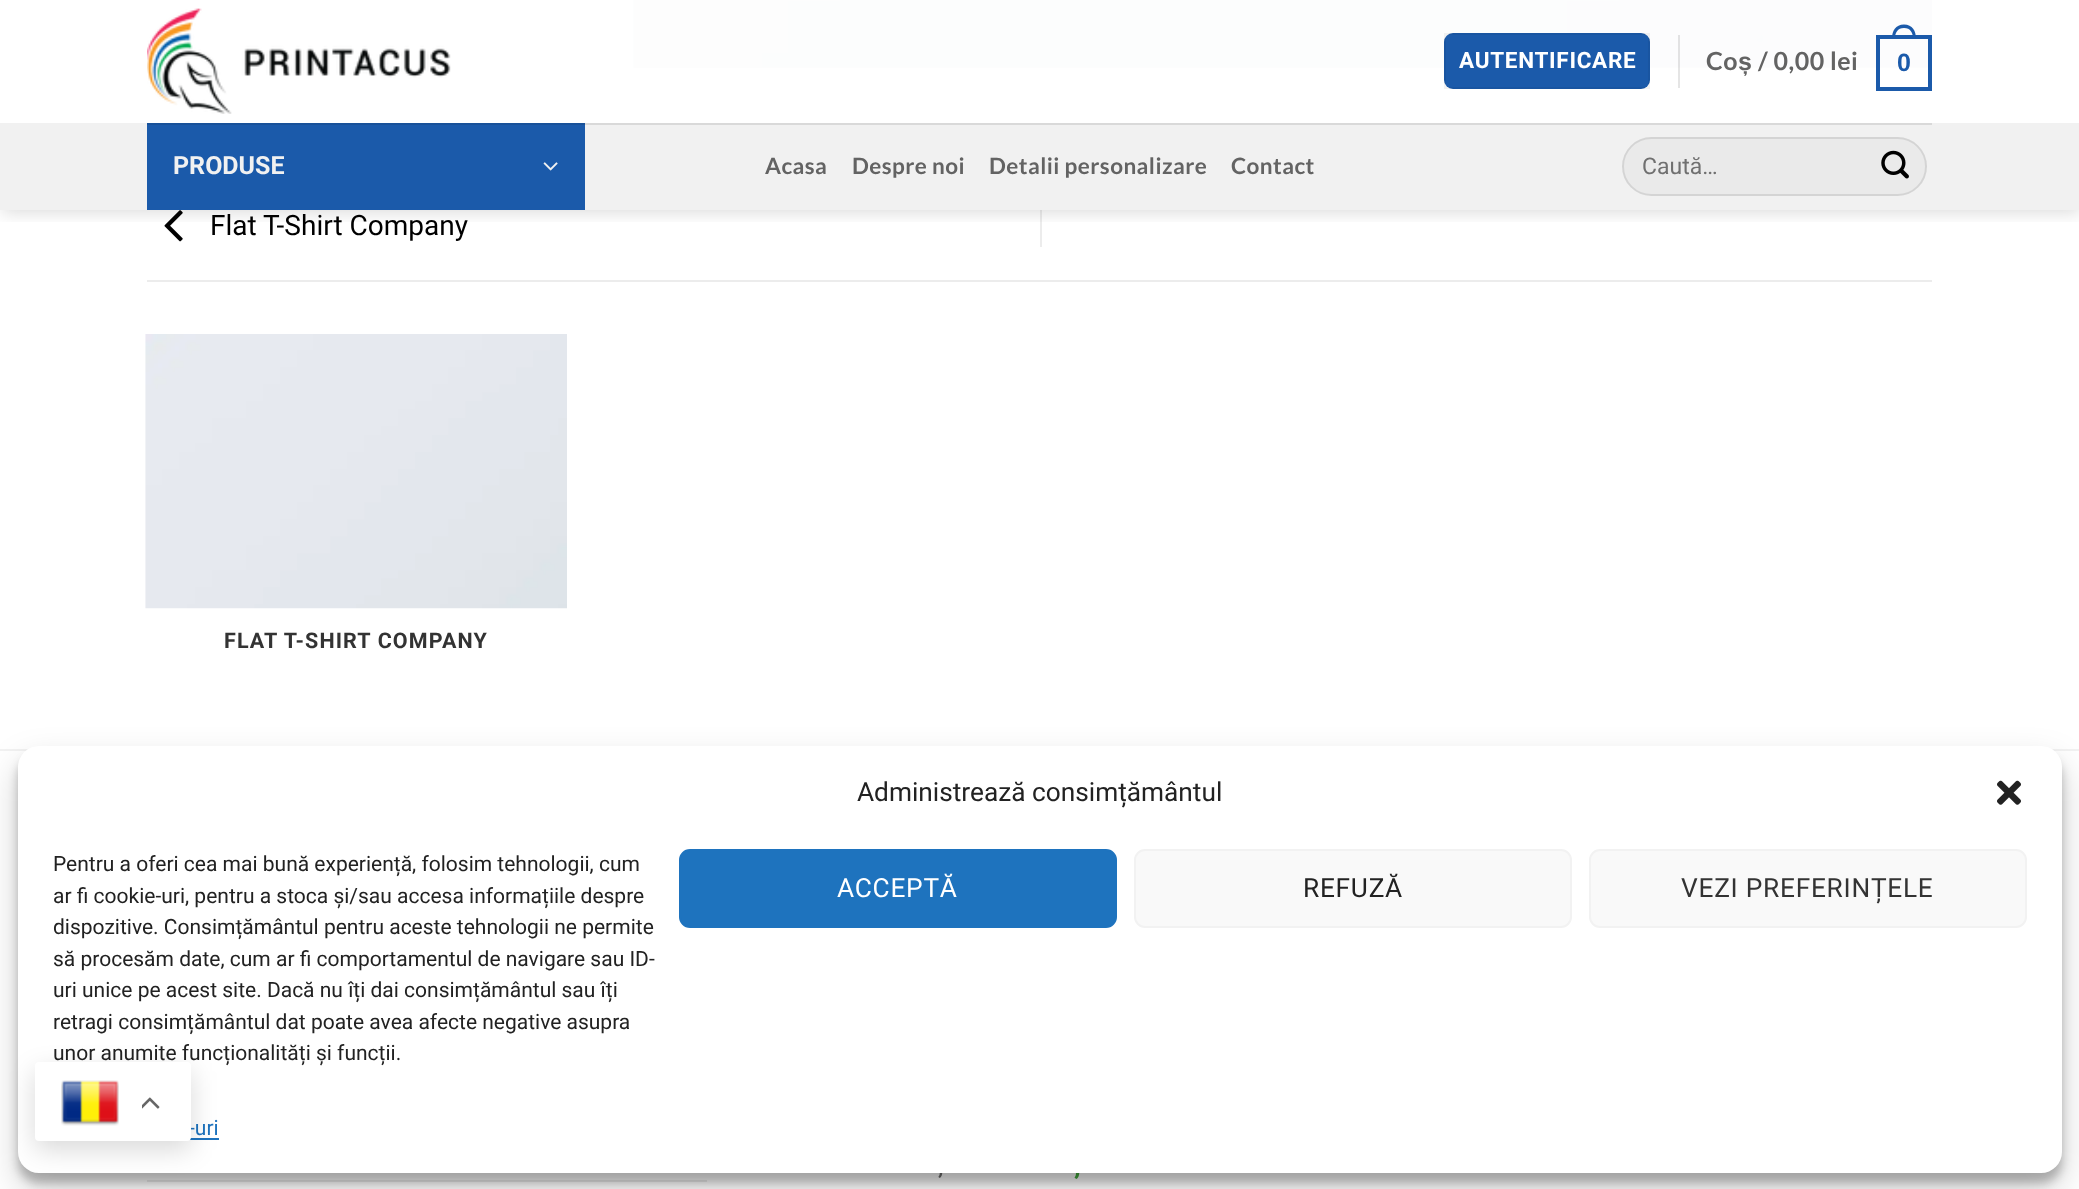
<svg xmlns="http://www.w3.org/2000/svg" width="2079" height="1189">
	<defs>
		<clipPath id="clip1"><rect x="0" y="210" width="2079" height="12" /></clipPath>
	</defs>
	<rect width="100%" height="100%" fill="#FFFFFF" />
	<image x="633" y="0" width="1299" height="68" href="assets/img4.png" />
	<image x="164" y="210" width="19" height="32" href="assets/img5.png" />
	<rect x="1040" y="208" width="2" height="39" fill="#ECECEC" />
	<g clip-path="url(#clip1)">
		<rect x="2" y="2" width="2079" height="210" fill="#000000" fill-opacity="0.15" filter="blur(9px)" />
	</g>
	<image x="147" y="8" width="304" height="106" href="assets/img1.png" />
	<rect x="1444" y="33" width="206" height="56" rx="9" fill="#1B5AAA" />
	<rect x="1445" y="34" width="204" height="54" fill="none" stroke="#000000" stroke-opacity="0.05" stroke-width="2" />
	<text x="1459" y="68" font-family="Roboto" font-size="22.5" font-weight="700" letter-spacing="0.7" fill="#FFFFFF">AUTENTIFICARE</text>
	<rect x="1678" y="35" width="2" height="53" fill="#000000" fill-opacity="0.1" />
	<text x="1706" y="70" font-family="Lato" font-size="25" font-weight="700" letter-spacing="0.5" fill="#636363">Co</text>
	<text x="1738" y="70" font-family="Liberation Sans" font-size="25" font-weight="700" letter-spacing="0.5" fill="#636363">ș</text>
	<text x="1758" y="70" font-family="Lato" font-size="25" font-weight="700" letter-spacing="0.5" fill="#636363">/ 0,00 lei</text>
	<rect x="1878" y="37" width="52" height="52" fill="none" stroke="#1B5AAA" stroke-width="4" />
	<path d="M1904 24.5C1912.5 24.5 1916 31 1916 38.5H1892C1892 31 1895.5 24.5 1904 24.5ZM1904 28C1910.5 28 1913 33 1913 38.5H1895C1895 33 1897.5 28 1904 28Z" fill="#1B5AAA" fill-rule="evenodd" />
	<text x="1897" y="71" font-family="Liberation Sans" font-size="25" font-weight="700" letter-spacing="0.5" fill="#1B5AAA">0</text>
	<rect x="0" y="123" width="2079" height="87" fill="#F1F1F1" />
	<rect x="585" y="123" width="1347" height="2" fill="#D9D9D9" />
	<rect x="147" y="125" width="438" height="85" fill="#1B5AAA" />
	<rect x="147" y="123" width="438" height="2" fill="#185199" />
	<text x="173" y="174" font-family="Roboto" font-size="25" font-weight="700" fill="#F1F1F1">PRODUSE</text>
	<image x="543" y="162" width="15" height="9" href="assets/img2.png" />
	<g font-family="Lato" font-size="22.5" font-weight="700" letter-spacing="0.45" fill="#636363">
		<text x="765" y="174">Acasa</text>
		<text x="852" y="174">Despre noi</text>
		<text x="989" y="174">Detalii personalizare</text>
		<text x="1231" y="174">Contact</text>
	</g>
	<rect x="1622" y="137" width="305" height="59" rx="29.5" fill="#EAEAEA" />
	<rect x="1623" y="138" width="303" height="57" rx="28.5" fill="none" stroke="#000000" stroke-opacity="0.09" stroke-width="2" />
	<text x="1642" y="174" font-family="Roboto" font-size="23" fill="#707070">Caută…</text>
	<image x="1881" y="150" width="28" height="29" href="assets/img3.png" />
	<rect x="147" y="280" width="1785" height="2" fill="#ECECEC" />
	<text x="210" y="235" font-family="Roboto" font-size="28" fill="#000000">Flat T-Shirt Company</text>
	<image x="145" y="334" width="422" height="275" href="assets/img6.png" />
	<text x="224" y="648" font-family="Roboto" font-size="21.5" font-weight="700" letter-spacing="1.1" fill="#333333">FLAT T-SHIRT COMPANY</text>
	<rect x="0" y="749" width="2079" height="2" fill="#F2F2F2" />
	<text x="938" y="1174" font-family="Roboto" font-size="28" fill="#707070">,</text>
	<text x="1074" y="1174" font-family="Roboto" font-size="28" font-weight="700" fill="#46AC3F">,</text>
	<rect x="147" y="1180" width="560" height="2" fill="#ECECEC" />
	<rect x="18" y="756" width="2044" height="427" rx="21" fill="#000000" fill-opacity="0.23" filter="blur(5px)" />
	<rect x="18" y="763" width="2044" height="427" rx="21" fill="#000000" fill-opacity="0.19" filter="blur(17.5px)" />
	<rect x="18" y="746" width="2044" height="427" rx="21" fill="#FFFFFF" />
	<text x="857" y="801" font-family="Roboto" font-size="26.25" fill="#222222">Administrează consimțământul</text>
	<image x="1997" y="780" width="24" height="25" href="assets/img7.png" />
	<g font-family="Roboto" font-size="21" fill="#222222">
		<text x="53" y="871">Pentru a oferi cea mai bună experiență, folosim tehnologii, cum</text>
		<text x="53" y="903">ar fi cookie-uri, pentru a stoca și/sau accesa informațiile despre</text>
		<text x="53" y="934">dispozitive. Consimțământul pentru aceste tehnologii ne permite</text>
		<text x="53" y="966">să procesăm date, cum ar fi comportamentul de navigare sau ID-</text>
		<text x="53" y="997">uri unice pe acest site. Dacă nu îți dai consimțământul sau îți</text>
		<text x="53" y="1029">retragi consimțământul dat poate avea afecte negative asupra</text>
		<text x="53" y="1060">unor anumite funcționalități și funcții.</text>
	</g>
	<rect x="680" y="850" width="436" height="77" rx="10" fill="#1E73BE" stroke="#1E73BE" stroke-width="2" />
	<text x="837" y="897" font-family="Roboto" font-size="26.25" letter-spacing="0.75" fill="#FFFFFF">ACCEPTĂ</text>
	<rect x="1135" y="850" width="436" height="77" rx="10" fill="#F9F9F9" stroke="#F2F2F2" stroke-width="2" />
	<text x="1303" y="897" font-family="Roboto" font-size="26.25" letter-spacing="0.75" fill="#222222">REFUZĂ</text>
	<rect x="1590" y="850" width="436" height="77" rx="10" fill="#F9F9F9" stroke="#F2F2F2" stroke-width="2" />
	<text x="1681" y="897" font-family="Roboto" font-size="26.25" letter-spacing="0.75" fill="#333333">VEZI PREFERINȚELE</text>
	<text x="189" y="1135" font-family="Roboto" font-size="21" fill="#1E73BE">-uri</text>
	<rect x="189" y="1138" width="30" height="2" fill="#1E73BE" />
	<rect x="35" y="1071" width="156" height="79" rx="4" fill="#000000" fill-opacity="0.15" filter="blur(13px)" />
	<rect x="35" y="1062" width="156" height="79" rx="4" fill="#FFFFFF" />
	<image x="61" y="1080" width="58" height="46" href="assets/img8.png" />
	<image x="142" y="1097" width="18" height="12" href="assets/img9.png" />
</svg>
